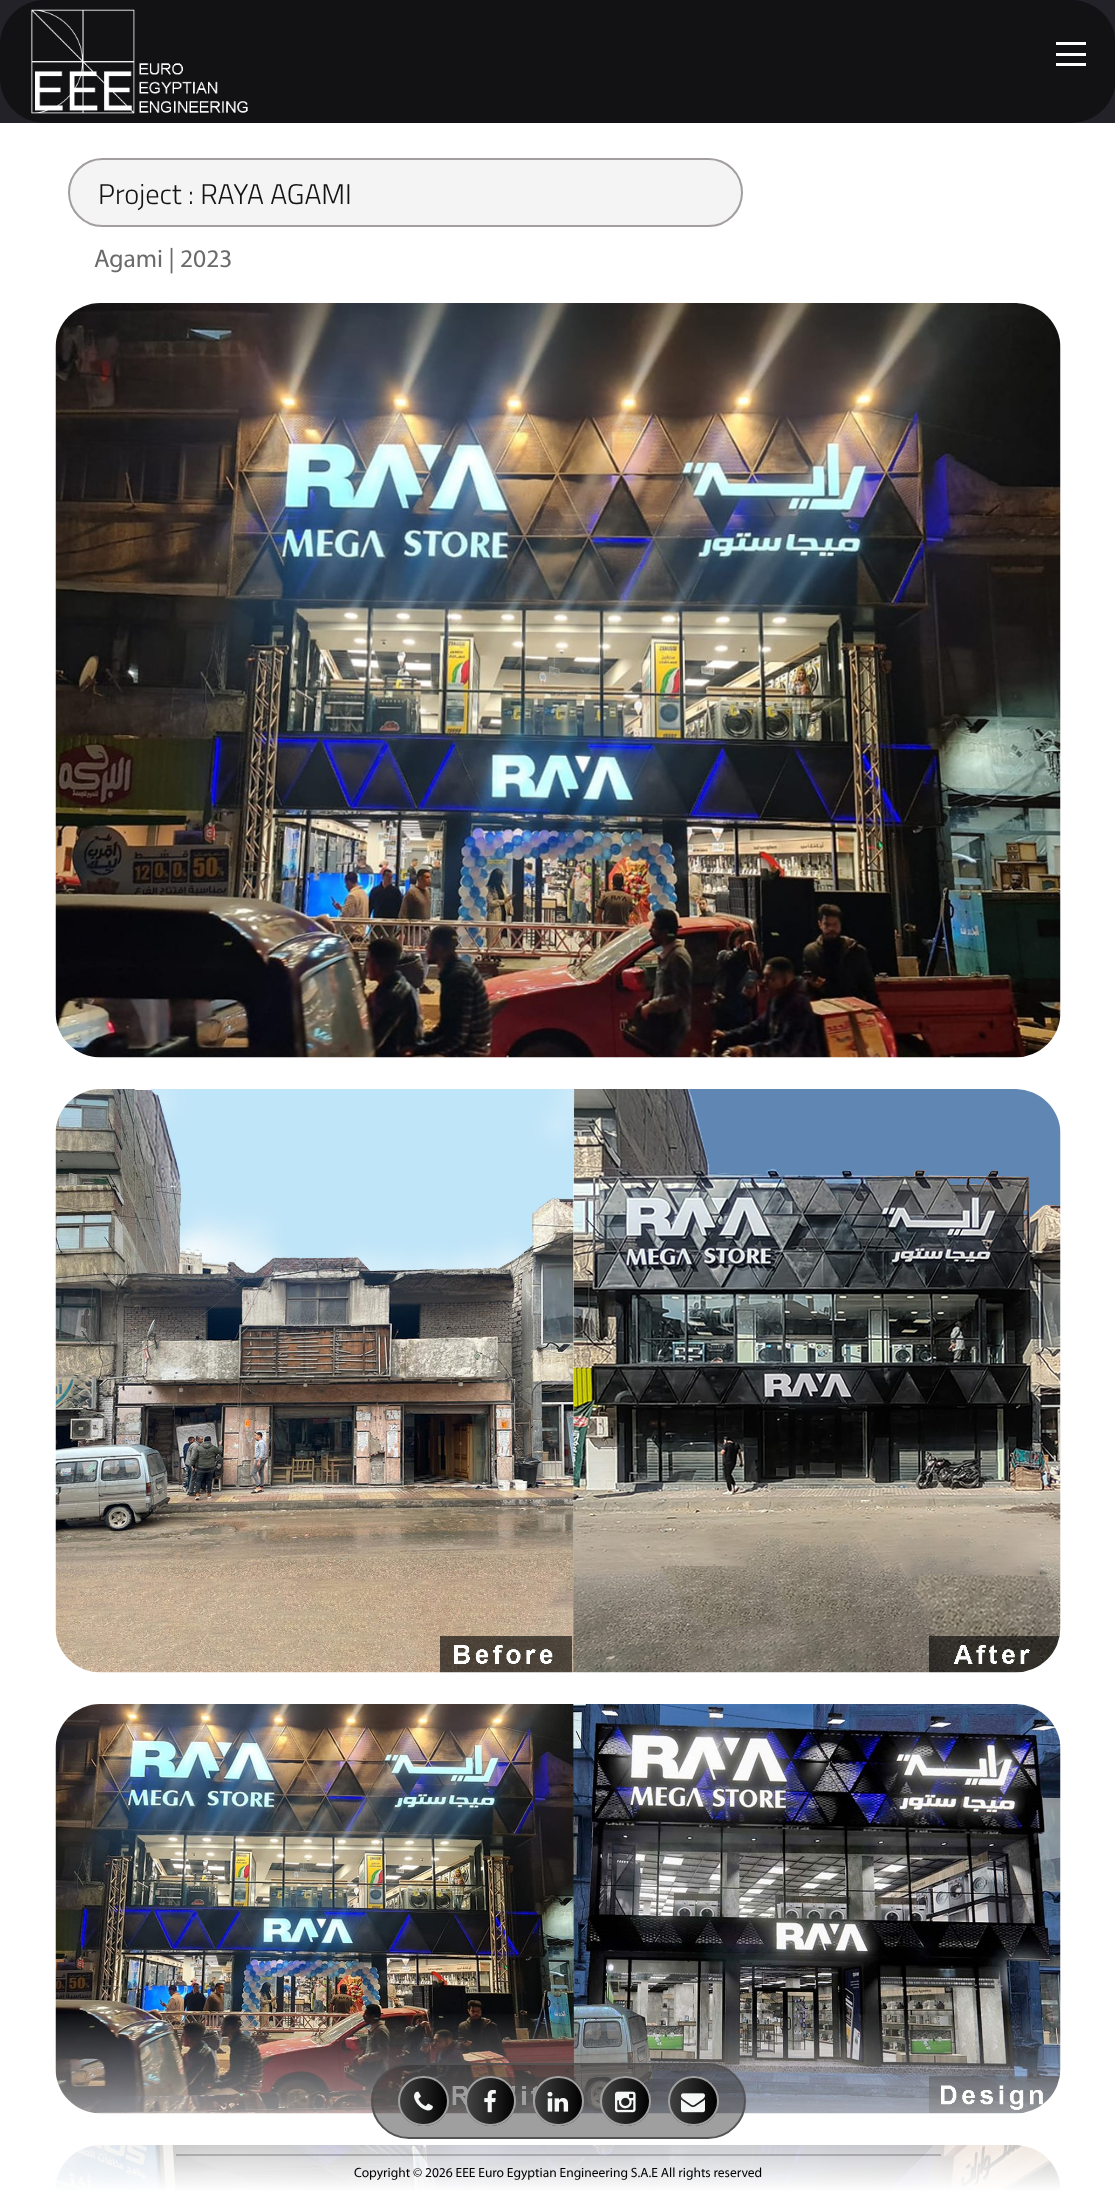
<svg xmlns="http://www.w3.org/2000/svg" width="1115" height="2191">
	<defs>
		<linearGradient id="g1" gradientUnits="userSpaceOnUse" x1="558" y1="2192" x2="558" y2="2010"><stop offset="0" stop-color="#FFFFFF" /><stop offset="1" stop-color="#FFFFFF" stop-opacity="0" /></linearGradient>
		<clipPath id="clip1"><rect x="398" y="2076" width="51" height="50" rx="25" /></clipPath>
		<linearGradient id="g2" gradientUnits="userSpaceOnUse" x1="399" y1="2101" x2="447" y2="2101"><stop offset="0" stop-color="#434343" /><stop offset="1" stop-color="#000000" /></linearGradient>
		<clipPath id="clip2"><rect x="465" y="2076" width="51" height="50" rx="25" /></clipPath>
		<linearGradient id="g3" gradientUnits="userSpaceOnUse" x1="467" y1="2101" x2="515" y2="2101"><stop offset="0" stop-color="#434343" /><stop offset="1" stop-color="#000000" /></linearGradient>
		<clipPath id="clip3"><rect x="533" y="2076" width="51" height="50" rx="25" /></clipPath>
		<linearGradient id="g4" gradientUnits="userSpaceOnUse" x1="534" y1="2101" x2="582" y2="2101"><stop offset="0" stop-color="#434343" /><stop offset="1" stop-color="#000000" /></linearGradient>
		<clipPath id="clip4"><rect x="600" y="2076" width="51" height="50" rx="25" /></clipPath>
		<linearGradient id="g5" gradientUnits="userSpaceOnUse" x1="602" y1="2101" x2="650" y2="2101"><stop offset="0" stop-color="#434343" /><stop offset="1" stop-color="#000000" /></linearGradient>
		<clipPath id="clip5"><rect x="668" y="2076" width="51" height="50" rx="25" /></clipPath>
		<linearGradient id="g6" gradientUnits="userSpaceOnUse" x1="669" y1="2101" x2="717" y2="2101"><stop offset="0" stop-color="#434343" /><stop offset="1" stop-color="#000000" /></linearGradient>
	</defs>
	<rect width="100%" height="100%" fill="#FFFFFF" />
	<rect x="0" y="0" width="1115" height="123" fill="#232228" />
	<rect x="0" y="0" width="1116" height="123" rx="45" fill="#121114" />
	<image x="31" y="9" width="217" height="105" href="assets/img1.png" />
	<rect x="1056" y="53" width="30" height="3" fill="#FFFFFF" />
	<rect x="1056" y="42" width="30" height="3" fill="#FFFFFF" />
	<rect x="1056" y="63" width="30" height="3" fill="#FFFFFF" />
	<rect x="69" y="159" width="673" height="67" rx="33.5" fill="#F4F4F4" stroke="#A29E9E" stroke-width="2" />
	<text x="98" y="204" font-family="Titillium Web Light" font-size="28.5" font-weight="300" fill="#131313">Project : RAYA AGAMI</text>
	<text x="94" y="267" font-family="Myriad" font-size="25.5" fill="#6A6A6A">Agami | 2023</text>
	<image x="55" y="303" width="1006" height="755" href="assets/img2.png" />
	<image x="55" y="1089" width="1006" height="584" href="assets/img3.png" />
	<image x="55" y="1704" width="1006" height="410" href="assets/img4.png" />
	<image x="55" y="2145" width="1006" height="46" href="assets/img5.png" />
	<rect x="55" y="2014" width="1006" height="177" fill="url(#g1)" />
	<rect x="372" y="2064" width="373" height="74" rx="37" fill="#262525" fill-opacity="0.44" stroke="#535353" stroke-width="2" />
	<g clip-path="url(#clip1)">
		<rect x="399" y="2076" width="48" height="50" fill="url(#g2)" />
	</g>
	<rect x="399" y="2077" width="49" height="48" rx="24" fill="none" stroke="#A1A1A2" stroke-width="2" />
	<image x="414" y="2091" width="19" height="20" href="assets/img6.png" />
	<g clip-path="url(#clip2)">
		<rect x="467" y="2076" width="48" height="50" fill="url(#g3)" />
	</g>
	<rect x="466" y="2077" width="49" height="48" rx="24" fill="none" stroke="#A1A1A2" stroke-width="2" />
	<image x="484" y="2089" width="12" height="24" href="assets/img7.png" />
	<g clip-path="url(#clip3)">
		<rect x="534" y="2076" width="48" height="50" fill="url(#g4)" />
	</g>
	<rect x="534" y="2077" width="49" height="48" rx="24" fill="none" stroke="#A1A1A2" stroke-width="2" />
	<image x="547" y="2091" width="22" height="21" href="assets/img8.png" />
	<g clip-path="url(#clip4)">
		<rect x="602" y="2076" width="48" height="50" fill="url(#g5)" />
	</g>
	<rect x="601" y="2077" width="49" height="48" rx="24" fill="none" stroke="#A1A1A2" stroke-width="2" />
	<image x="615" y="2091" width="21" height="22" href="assets/img9.png" />
	<g clip-path="url(#clip5)">
		<rect x="669" y="2076" width="48" height="50" fill="url(#g6)" />
	</g>
	<rect x="669" y="2077" width="49" height="48" rx="24" fill="none" stroke="#A1A1A2" stroke-width="2" />
	<image x="681" y="2093" width="24" height="20" href="assets/img10.png" />
	<rect x="176" y="2154" width="765" height="2" fill="#000000" fill-opacity="0.2" />
	<text x="354" y="2177" font-family="Myriad" font-size="13.5" fill="#000000">Copyright © 2026 EEE Euro Egyptian Engineering S.A.E All rights reserved</text>
</svg>
